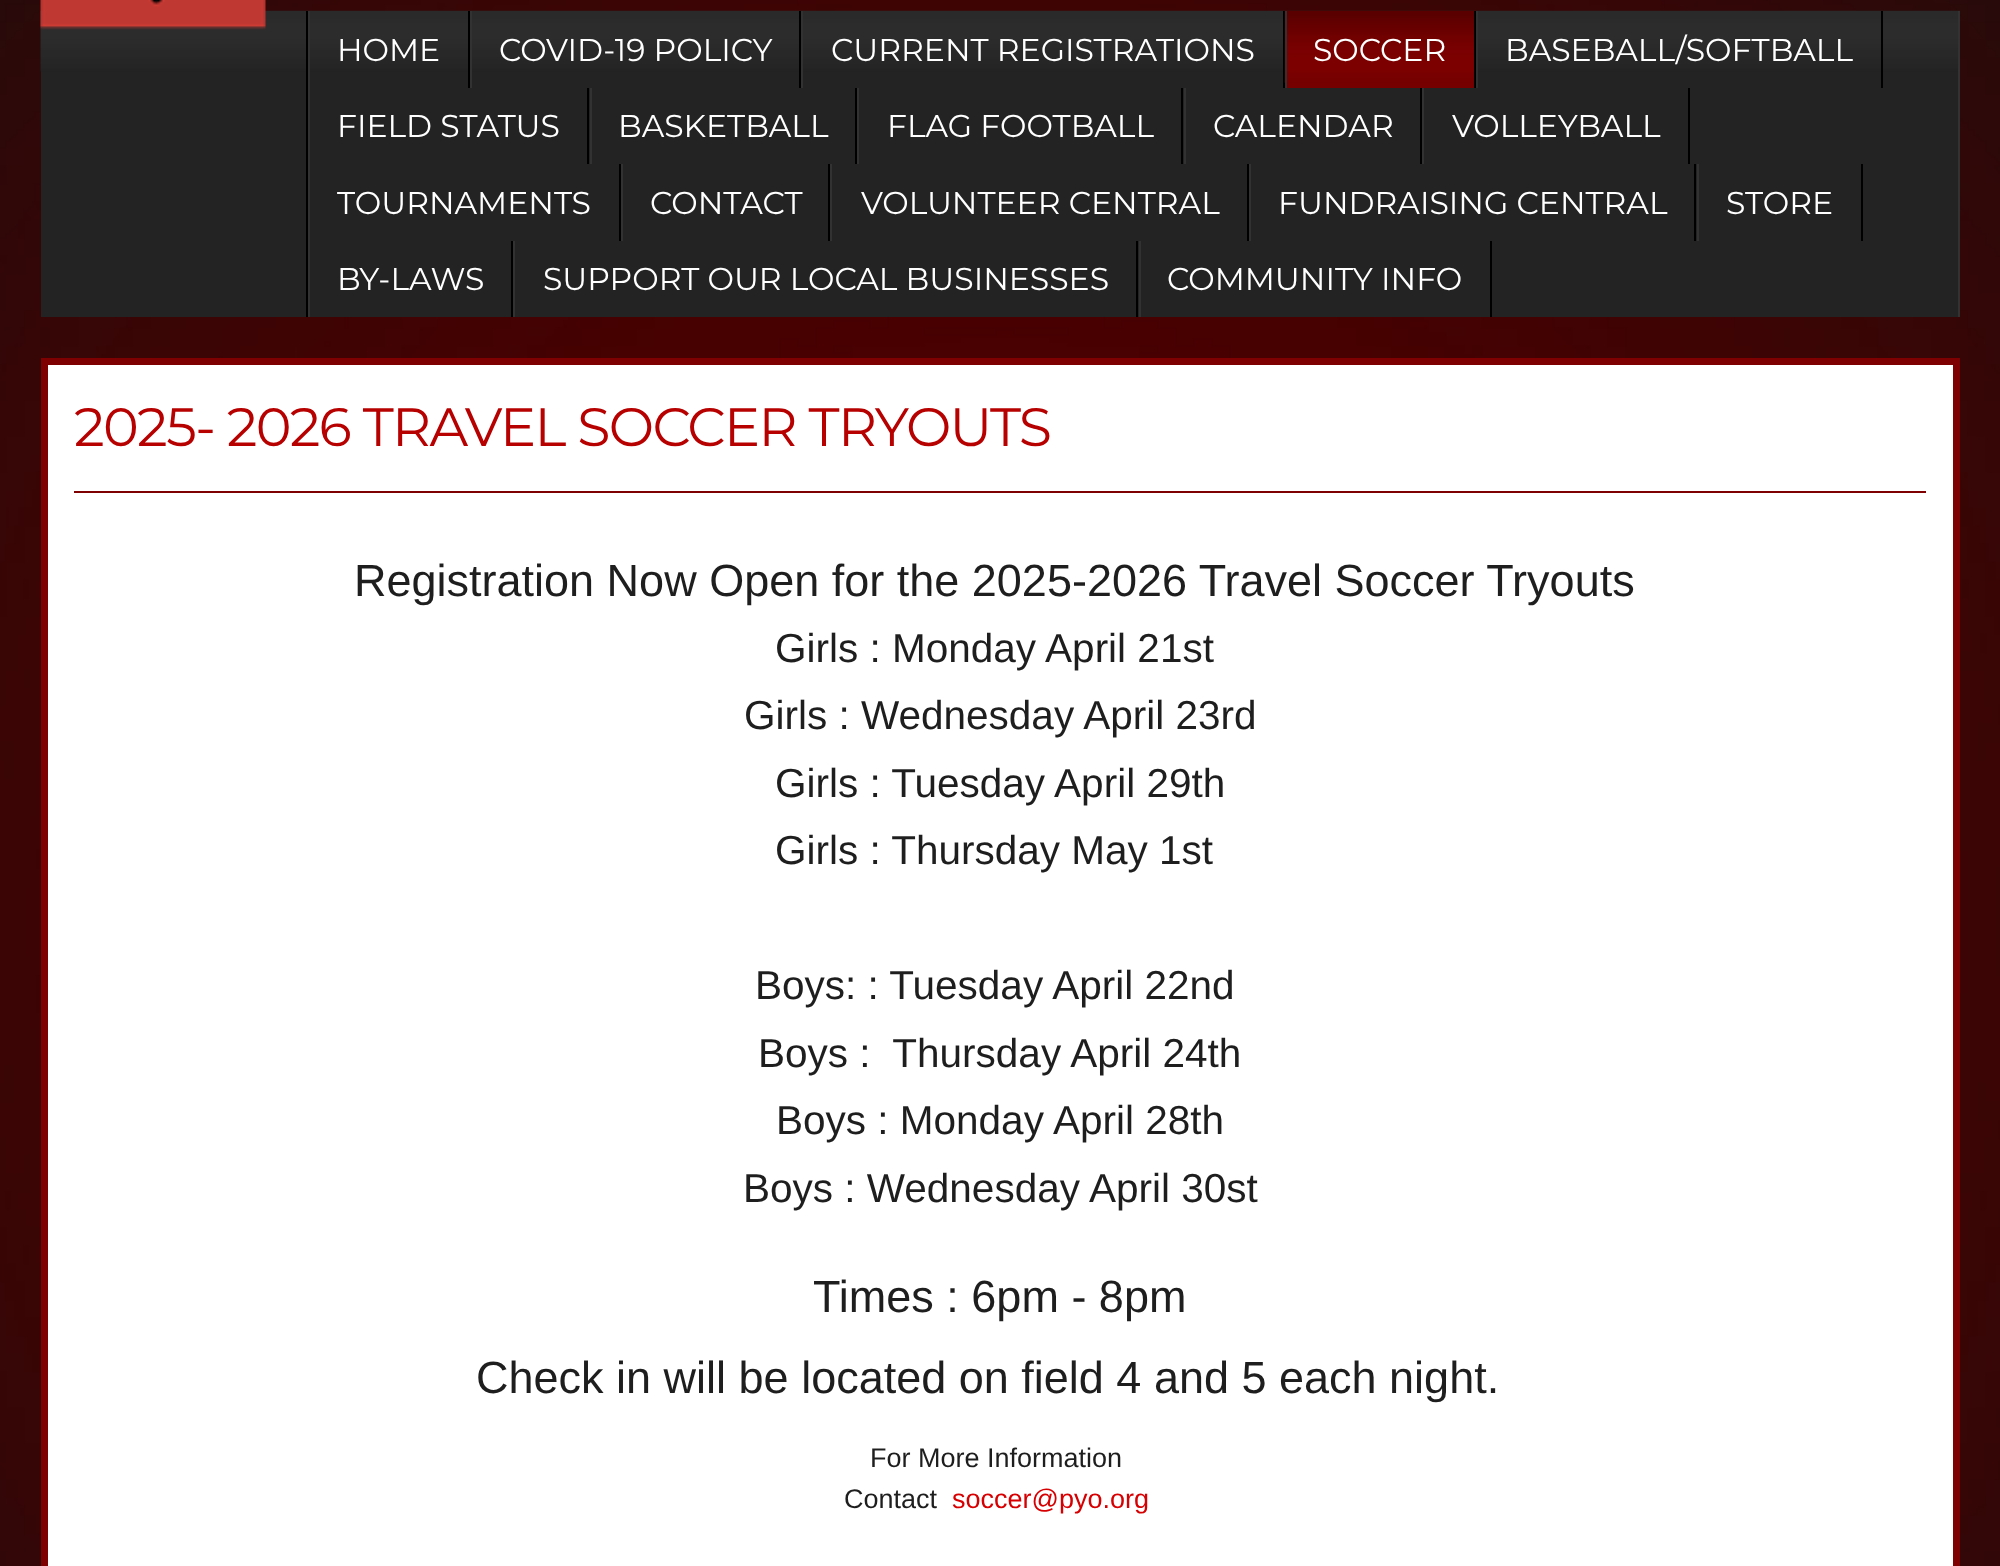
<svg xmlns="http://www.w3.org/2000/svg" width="2000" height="1566">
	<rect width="100%" height="100%" fill="#FFFFFF" />
	<image x="0" y="0" width="2000" height="1566" href="assets/img1.png" />
	<rect x="41" y="71" width="1917" height="246" fill="#232323" />
	<image x="40" y="10" width="1920" height="62" href="assets/img3.png" />
	<image x="40" y="0" width="226" height="30" href="assets/img2.png" />
	<rect x="1958" y="11" width="2" height="306" fill="#323232" />
	<rect x="306" y="11" width="2" height="306" fill="#000000" />
	<rect x="468" y="11" width="2" height="77" fill="#000000" />
	<rect x="308" y="11" width="2" height="306" fill="#323232" />
	<text x="337" y="61" font-family="Montserrat" font-size="31.5" fill="#FFFFFF">HOME</text>
	<rect x="799" y="11" width="2" height="77" fill="#000000" />
	<rect x="470" y="11" width="2" height="77" fill="#323232" />
	<text x="499" y="61" font-family="Montserrat" font-size="31.5" fill="#FFFFFF">COVID-19 POLICY</text>
	<rect x="1283" y="11" width="2" height="77" fill="#000000" />
	<rect x="801" y="11" width="2" height="77" fill="#323232" />
	<text x="831" y="61" font-family="Montserrat" font-size="31.5" fill="#FFFFFF">CURRENT REGISTRATIONS</text>
	<rect x="1287" y="82" width="187" height="6" fill="#760000" />
	<image x="1284" y="10" width="192" height="73" href="assets/img4.png" />
	<rect x="1474" y="11" width="2" height="77" fill="#000000" />
	<rect x="1285" y="11" width="2" height="77" fill="#323232" />
	<text x="1313" y="61" font-family="Montserrat" font-size="31.5" fill="#FFFFFF">SOCCER</text>
	<rect x="1881" y="11" width="2" height="77" fill="#000000" />
	<rect x="1476" y="11" width="2" height="77" fill="#323232" />
	<text x="1505" y="61" font-family="Montserrat" font-size="31.5" fill="#FFFFFF">BASEBALL/SOFTBALL</text>
	<rect x="587" y="88" width="2" height="76" fill="#000000" />
	<text x="337" y="137" font-family="Montserrat" font-size="31.5" fill="#FFFFFF">FIELD STATUS</text>
	<rect x="855" y="88" width="2" height="76" fill="#000000" />
	<rect x="590" y="88" width="2" height="76" fill="#323232" />
	<text x="618" y="137" font-family="Montserrat" font-size="31.5" fill="#FFFFFF">BASKETBALL</text>
	<rect x="1181" y="88" width="2" height="76" fill="#000000" />
	<rect x="857" y="88" width="2" height="76" fill="#323232" />
	<text x="887" y="137" font-family="Montserrat" font-size="31.5" fill="#FFFFFF">FLAG FOOTBALL</text>
	<rect x="1420" y="88" width="2" height="76" fill="#000000" />
	<rect x="1184" y="88" width="2" height="76" fill="#323232" />
	<text x="1213" y="137" font-family="Montserrat" font-size="31.5" fill="#FFFFFF">CALENDAR</text>
	<rect x="1688" y="88" width="2" height="76" fill="#000000" />
	<rect x="1422" y="88" width="2" height="76" fill="#323232" />
	<text x="1452" y="137" font-family="Montserrat" font-size="31.5" fill="#FFFFFF">VOLLEYBALL</text>
	<rect x="619" y="164" width="2" height="77" fill="#000000" />
	<text x="337" y="214" font-family="Montserrat" font-size="31.5" fill="#FFFFFF">TOURNAMENTS</text>
	<rect x="828" y="164" width="2" height="77" fill="#000000" />
	<rect x="621" y="164" width="2" height="77" fill="#323232" />
	<text x="650" y="214" font-family="Montserrat" font-size="31.5" fill="#FFFFFF">CONTACT</text>
	<rect x="1247" y="164" width="2" height="77" fill="#000000" />
	<rect x="830" y="164" width="2" height="77" fill="#323232" />
	<text x="861" y="214" font-family="Montserrat" font-size="31.5" fill="#FFFFFF">VOLUNTEER CENTRAL</text>
	<rect x="1694" y="164" width="2" height="77" fill="#000000" />
	<rect x="1249" y="164" width="2" height="77" fill="#323232" />
	<text x="1278" y="214" font-family="Montserrat" font-size="31.5" fill="#FFFFFF">FUNDRAISING CENTRAL</text>
	<rect x="1861" y="164" width="2" height="77" fill="#000000" />
	<rect x="1697" y="164" width="2" height="77" fill="#323232" />
	<text x="1726" y="214" font-family="Montserrat" font-size="31.5" fill="#FFFFFF">STORE</text>
	<rect x="511" y="241" width="2" height="76" fill="#000000" />
	<text x="337" y="290" font-family="Montserrat" font-size="31.5" fill="#FFFFFF">BY-LAWS</text>
	<rect x="1136" y="241" width="2" height="76" fill="#000000" />
	<rect x="513" y="241" width="2" height="76" fill="#323232" />
	<text x="543" y="290" font-family="Montserrat" font-size="31.5" fill="#FFFFFF">SUPPORT OUR LOCAL BUSINESSES</text>
	<rect x="1490" y="241" width="2" height="76" fill="#000000" />
	<rect x="1139" y="241" width="2" height="76" fill="#323232" />
	<text x="1167" y="290" font-family="Montserrat" font-size="31.5" fill="#FFFFFF">COMMUNITY INFO</text>
	<rect x="44.5" y="361.5" width="1912" height="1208" fill="#FFFFFF" stroke="#7F0000" stroke-width="7" />
	<rect x="74" y="491" width="1852" height="2" fill="#7F0000" />
	<text x="74" y="446" font-family="Montserrat" font-size="54" letter-spacing="-1.6" fill="#B70000">2025- 2026 TRAVEL SOCCER TRYOUTS</text>
	<text x="354" y="596" font-family="Liberation Sans" font-size="45" fill="#1E1E1E">Registration Now Open for the 2025-2026 Travel Soccer Tryouts</text>
	<g font-family="Liberation Sans" font-size="40.5" fill="#1E1E1E">
		<text x="775" y="662">Girls : Monday April 21st</text>
		<text x="744" y="729">Girls : Wednesday April 23rd</text>
		<text x="775" y="797">Girls : Tuesday April 29th</text>
		<text x="775" y="864">Girls : Thursday May 1st</text>
		<text x="755" y="999">Boys: : Tuesday April 22nd</text>
		<text x="758" y="1067" xml:space="preserve">Boys :  Thursday April 24th</text>
		<text x="776" y="1134">Boys : Monday April 28th</text>
		<text x="743" y="1202">Boys : Wednesday April 30st</text>
	</g>
	<g font-family="Liberation Sans" font-size="45" fill="#1E1E1E">
		<text x="813" y="1312">Times : 6pm - 8pm</text>
		<text x="476" y="1393">Check in will be located on field 4 and 5 each night.</text>
	</g>
	<g font-family="Liberation Sans" font-size="27" fill="#1E1E1E">
		<text x="870" y="1467">For More Information</text>
		<text x="844" y="1508">Contact</text>
	</g>
	<text x="952" y="1508" font-family="Liberation Sans" font-size="27" fill="#D60002">soccer@pyo.org</text>
</svg>
